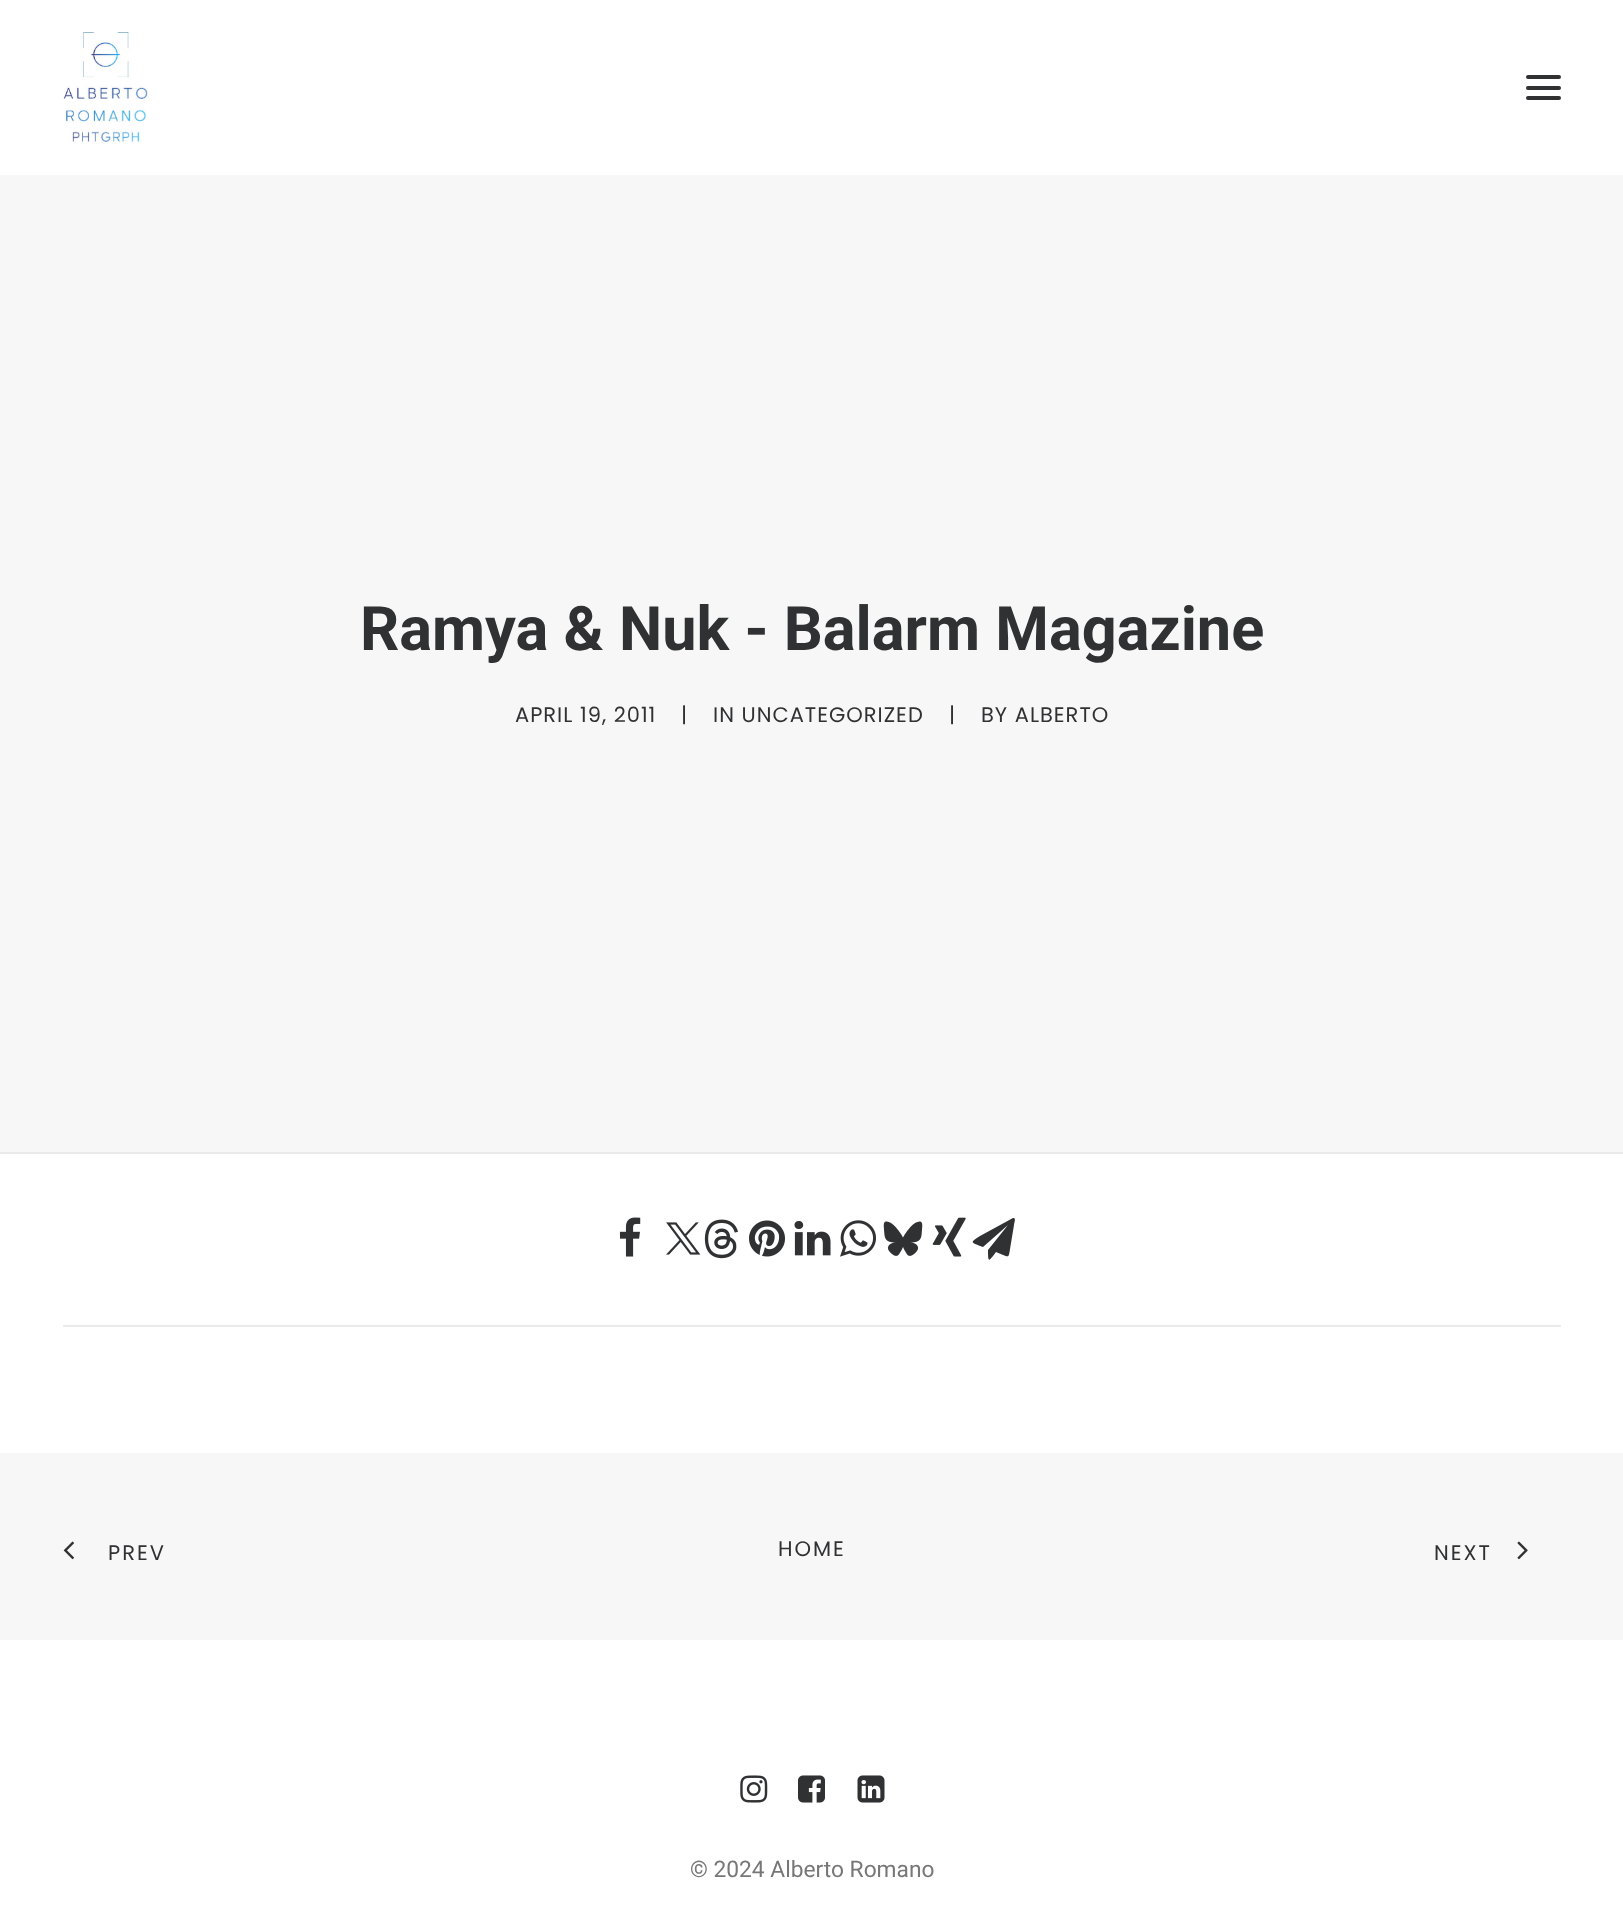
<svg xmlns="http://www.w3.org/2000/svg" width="1623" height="1921">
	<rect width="100%" height="100%" fill="#F7F7F7" />
	<rect x="0" y="0" width="1623" height="175" fill="#FFFFFF" />
	<image x="63" y="32" width="85" height="111" href="assets/img1.png" />
	<rect x="1526" y="86" width="35" height="4" rx="2" fill="#303133" />
	<rect x="1526" y="75" width="35" height="4" rx="2" fill="#303133" />
	<rect x="1526" y="96" width="35" height="4" rx="2" fill="#303133" />
	<text x="360" y="650" font-family="Roboto" font-size="61.25" font-weight="700" fill="#303133">Ramya &amp; Nuk - Balarm Magazine</text>
	<g font-family="Poppins" font-size="21" letter-spacing="1" fill="#303133">
		<text x="515" y="722">APRIL 19, 2011</text>
		<text x="681" y="722">|</text>
		<text x="713" y="722">IN UNCATEGORIZED</text>
		<text x="949" y="722">|</text>
		<text x="981" y="722">BY ALBERTO</text>
	</g>
	<rect x="0" y="1154" width="1623" height="299" fill="#FFFFFF" />
	<rect x="0" y="1152" width="1623" height="2" fill="#EAEAEA" />
	<rect x="63" y="1325" width="1498" height="2" fill="#EAEAEA" />
	<image x="619" y="1217" width="22" height="40" href="assets/img2.png" />
	<image x="666" y="1222" width="35" height="33" href="assets/img3.png" />
	<image x="704" y="1219" width="34" height="40" href="assets/img4.png" />
	<image x="749" y="1220" width="36" height="37" href="assets/img5.png" />
	<image x="794" y="1221" width="37" height="35" href="assets/img6.png" />
	<image x="840" y="1220" width="36" height="37" href="assets/img7.png" />
	<image x="883" y="1221" width="40" height="35" href="assets/img8.png" />
	<image x="932" y="1217" width="34" height="40" href="assets/img9.png" />
	<path d="M1014 1218C1016 1219 1014 1223 1014 1225L1011 1243C1008 1260 1011 1258 996 1252C989 1261 988 1264 988 1250L1008 1225L983 1247C971 1242 969 1243 980 1236L1013 1218Z" fill="#303133" />
	<image x="63" y="1541" width="11" height="19" href="assets/img10.png" />
	<g font-family="Poppins" font-size="21" letter-spacing="2" fill="#303133">
		<text x="108" y="1560">PREV</text>
		<text x="778" y="1556">HOME</text>
		<text x="1434" y="1560">NEXT</text>
	</g>
	<image x="1517" y="1541" width="11" height="19" href="assets/img11.png" />
	<rect x="0" y="1640" width="1623" height="281" fill="#FFFFFF" />
	<image x="740" y="1775" width="28" height="28" href="assets/img12.png" />
	<image x="798" y="1775" width="27" height="28" href="assets/img13.png" />
	<image x="857" y="1775" width="28" height="28" href="assets/img14.png" />
	<text x="690" y="1877" font-family="Roboto" font-size="22.75" fill="#777777">© 2024 Alberto Romano</text>
</svg>
